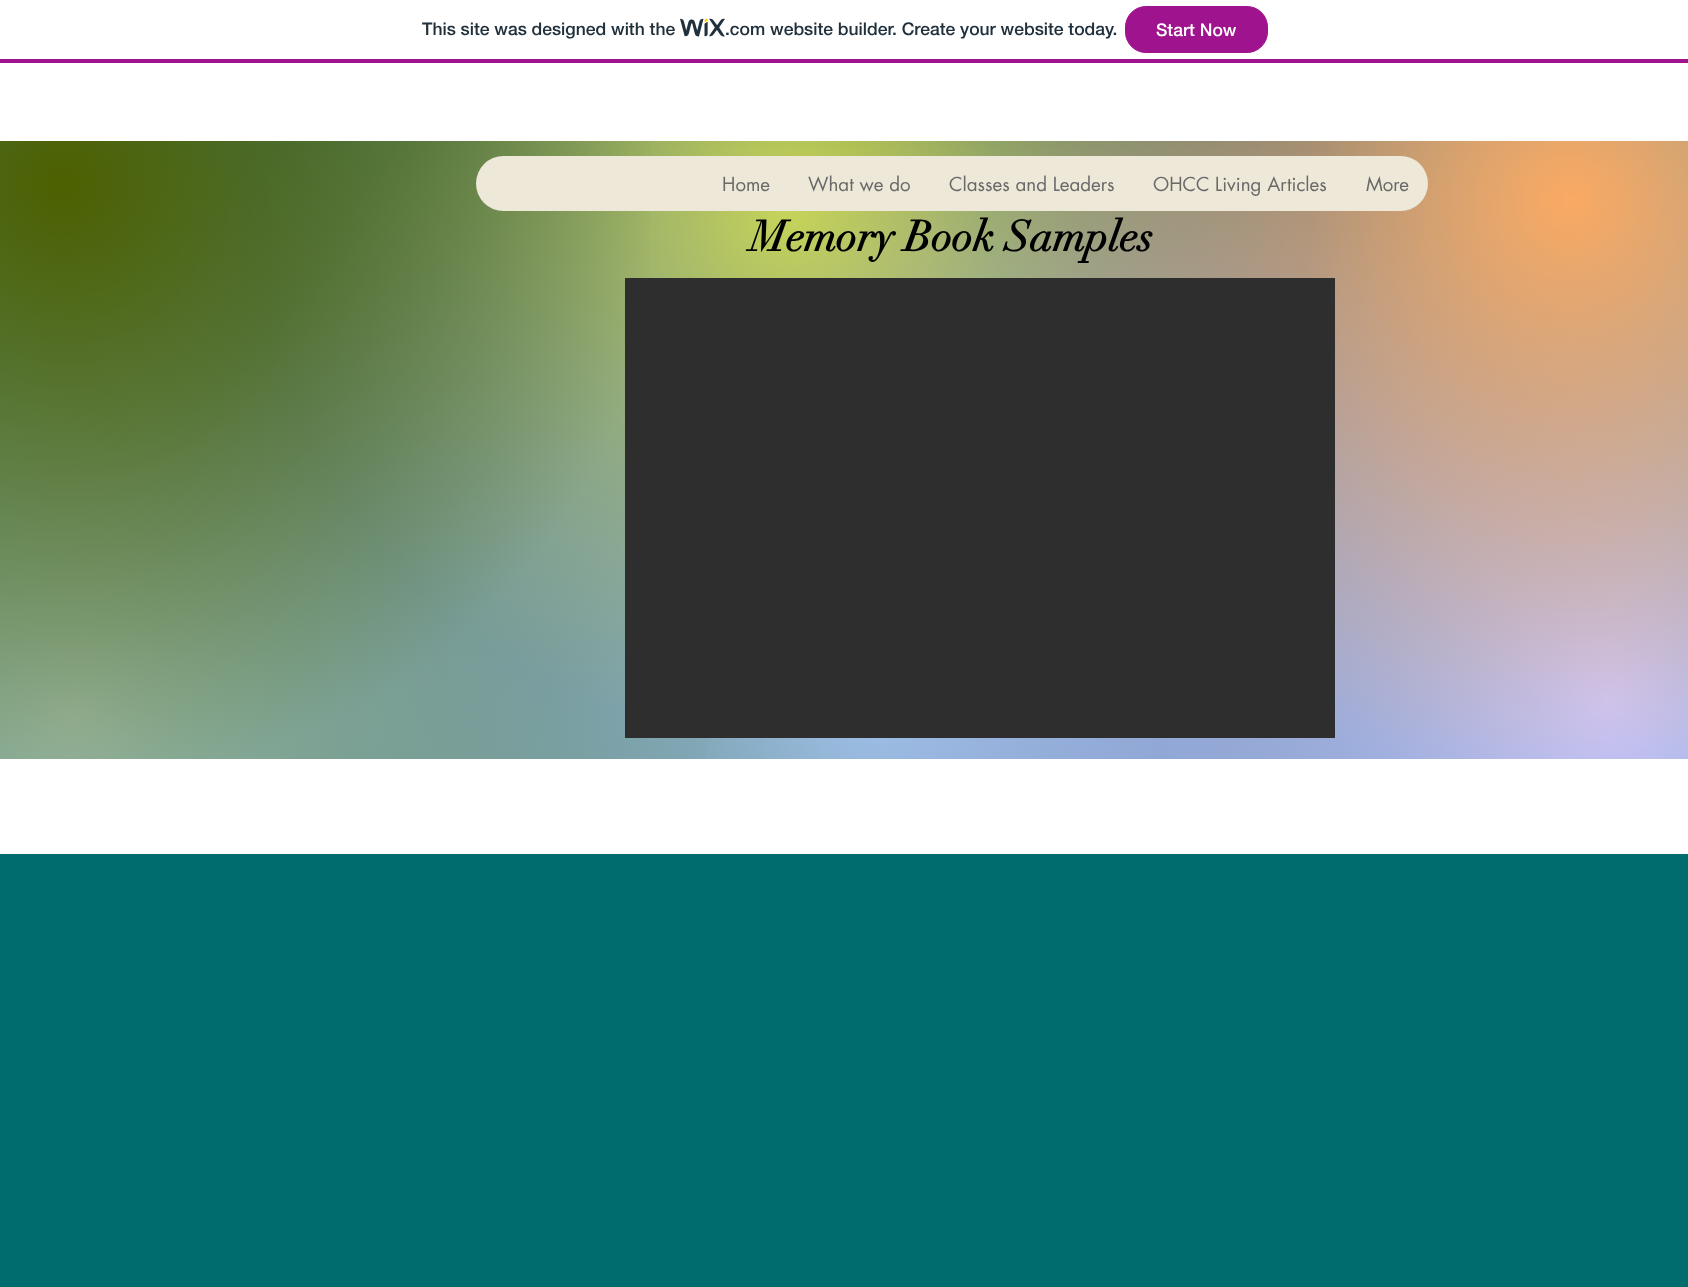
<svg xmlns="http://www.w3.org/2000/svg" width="1688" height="1287">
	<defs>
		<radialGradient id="g1" gradientUnits="userSpaceOnUse" cx="826" cy="447" r="917"><stop offset="0" stop-color="#000000" /><stop offset="1" stop-color="#006E6E" /></radialGradient>
		<radialGradient id="g2" gradientUnits="userSpaceOnUse" cx="863" cy="697" r="1027"><stop offset="0" stop-color="#93C3FF" /><stop offset="0.7" stop-color="#93C3FF" stop-opacity="0" /></radialGradient>
		<radialGradient id="g3" gradientUnits="userSpaceOnUse" cx="786" cy="212" r="1055"><stop offset="0" stop-color="#D6DE48" stop-opacity="0.99" /><stop offset="0.5" stop-color="#D6DE48" stop-opacity="0" /></radialGradient>
		<radialGradient id="g4" gradientUnits="userSpaceOnUse" cx="73" cy="718" r="1716"><stop offset="0" stop-color="#97B49D" /><stop offset="0.65" stop-color="#97B49D" stop-opacity="0" /></radialGradient>
		<radialGradient id="g5" gradientUnits="userSpaceOnUse" cx="1608" cy="700" r="1702"><stop offset="0" stop-color="#C9C6FF" /><stop offset="0.55" stop-color="#C9C6FF" stop-opacity="0" /></radialGradient>
		<radialGradient id="g6" gradientUnits="userSpaceOnUse" cx="1570" cy="200" r="1666"><stop offset="0" stop-color="#FAAA63" /><stop offset="0.35" stop-color="#FAAA63" stop-opacity="0" /></radialGradient>
		<radialGradient id="g7" gradientUnits="userSpaceOnUse" cx="62" cy="184" r="1725"><stop offset="0" stop-color="#4D6001" /><stop offset="0.35" stop-color="#4D6001" stop-opacity="0" /></radialGradient>
	</defs>
	<rect width="100%" height="100%" fill="#FFFFFF" />
	<rect x="0" y="59" width="1688" height="4" fill="#A0138E" />
	<text x="422" y="35" font-family="'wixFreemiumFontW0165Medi'" font-size="17.5" font-weight="500" fill="#20303C">This site was designed with the</text>
	<image x="680" y="18" width="45" height="19" href="assets/img1.png" />
	<text x="725" y="35" font-family="'wixFreemiumFontW0165Medi'" font-size="17.5" font-weight="500" fill="#20303C">.com website builder. Create your website today.</text>
	<rect x="1125.5" y="6.5" width="142" height="46" rx="20.5" fill="#A0138E" stroke="#A0138E" />
	<text x="1156" y="36" font-family="'wixFreemiumFontW0165Medi'" font-size="17.5" font-weight="500" fill="#FFFFFF">Start Now</text>
	<rect x="0" y="141" width="1688" height="618" fill="url(#g1)" />
	<rect x="162" y="141" width="1402" height="618" fill="url(#g2)" />
	<rect x="269" y="141" width="1034" height="562" fill="url(#g3)" />
	<rect x="0" y="141" width="1151" height="618" fill="url(#g4)" />
	<rect x="707" y="141" width="981" height="618" fill="url(#g5)" />
	<rect x="1001" y="141" width="687" height="618" fill="url(#g6)" />
	<rect x="0" y="141" width="650" height="618" fill="url(#g7)" />
	<rect x="476" y="156" width="952" height="55" rx="27.5" fill="#EEE8D8" />
	<g font-family="futura" font-size="18.75" fill="#696969">
		<text x="722" y="191">Home</text>
		<text x="808" y="191">What we do</text>
		<text x="949" y="191">Classes and Leaders</text>
		<text x="1153" y="191">OHCC Living Articles</text>
		<text x="1366" y="191">More</text>
	</g>
	<text x="750" y="251" font-family="didot" font-size="42.5" font-weight="700" fill="#000000">Memory Book Samples</text>
	<rect x="625" y="278" width="710" height="460" fill="#2F2E2E" />
	<rect x="0" y="854" width="1688" height="433" fill="#006C6D" />
</svg>
